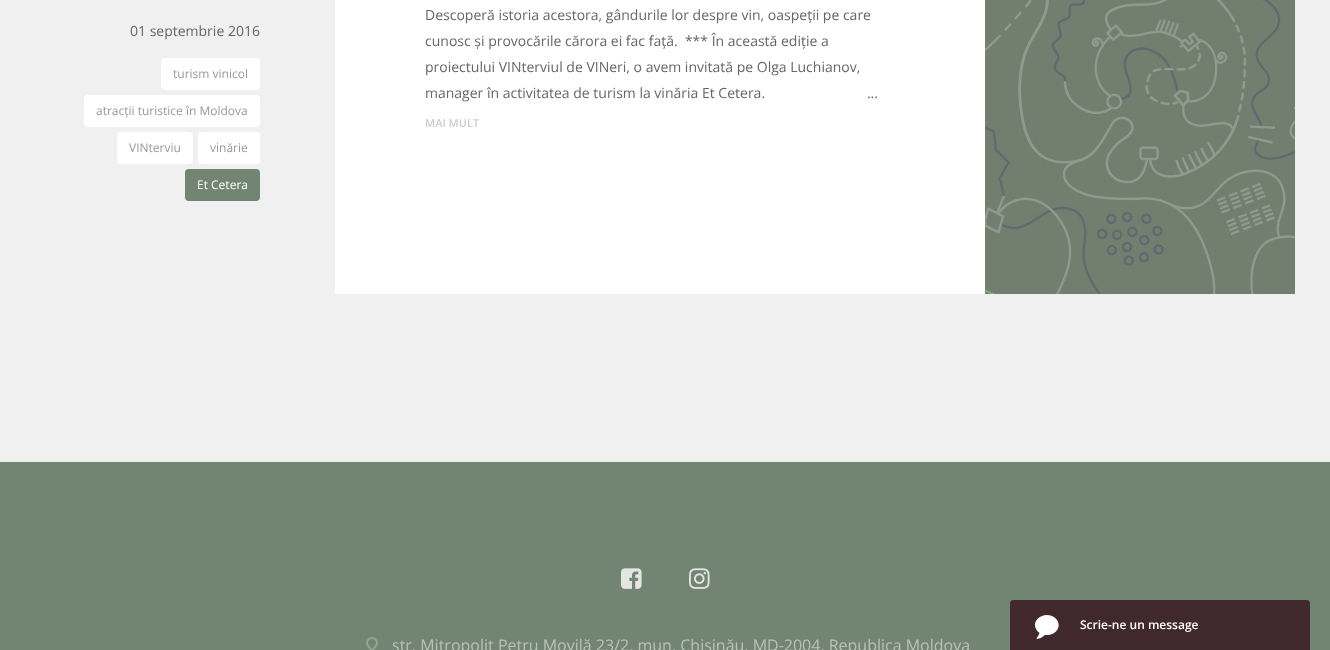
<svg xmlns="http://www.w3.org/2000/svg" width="1330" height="650">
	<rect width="100%" height="100%" fill="#F0F0F0" />
	<text x="130" y="36" font-family="Open Sans" font-size="14" fill="#666666">01 septembrie 2016</text>
	<rect x="161" y="58" width="99" height="32" rx="4" fill="#FFFFFF" />
	<text x="173" y="78" font-family="Open Sans" font-size="12" fill="#999999">turism vinicol</text>
	<rect x="84" y="95" width="176" height="32" rx="4" fill="#FFFFFF" />
	<text x="96" y="115" font-family="Open Sans" font-size="12" fill="#999999">atracții turistice în Moldova</text>
	<rect x="117" y="132" width="76" height="32" rx="4" fill="#FFFFFF" />
	<text x="129" y="152" font-family="Open Sans" font-size="12" fill="#999999">VINterviu</text>
	<rect x="198" y="132" width="62" height="32" rx="4" fill="#FFFFFF" />
	<text x="210" y="152" font-family="Open Sans" font-size="12" fill="#999999">vinărie</text>
	<rect x="185" y="169" width="75" height="32" rx="4" fill="#728472" />
	<text x="197" y="189" font-family="Open Sans" font-size="12" fill="#FFFFFF">Et Cetera</text>
	<rect x="335" y="0" width="650" height="294" fill="#FFFFFF" />
	<g font-family="Open Sans" font-size="14" fill="#666666">
		<text x="425" y="20">Descoperă istoria acestora, gândurile lor despre vin, oaspeții pe care</text>
		<text x="425" y="46" xml:space="preserve">cunosc și provocările cărora ei fac față.  *** În această ediție a</text>
		<text x="425" y="72">proiectului VINterviul de VINeri, o avem invitată pe Olga Luchianov,</text>
		<text x="425" y="98" xml:space="preserve">manager în activitatea de turism la vinăria Et Cetera.                            ...</text>
	</g>
	<text x="425" y="127" font-family="Open Sans" font-size="11" font-weight="600" fill="#CCCCCC">MAI MULT</text>
	<image x="985" y="0" width="310" height="294" href="assets/img1.png" />
	<rect x="0" y="462" width="1330" height="188" fill="#728472" />
	<path d="M1013 600H1307C1308.5 600 1310 601.5 1310 603V650H1010V603C1010 601.5 1011.5 600 1013 600Z" fill="#41282D" />
	<image x="1035" y="615" width="24" height="24" href="assets/img2.png" />
	<text x="1080" y="629" font-family="Open Sans" font-size="12" font-weight="600" fill="#FFFFFF">Scrie-ne un message</text>
	<image x="621" y="568" width="21" height="21" href="assets/img3.png" />
	<image x="689" y="568" width="21" height="21" href="assets/img4.png" />
	<image x="366" y="637" width="12" height="13" href="assets/img5.png" />
	<text x="392" y="651" font-family="Open Sans" font-size="16" fill="#B9C2B9">str. Mitropolit Petru Movilă 23/2, mun. Chișinău, MD-2004, Republica Moldova</text>
</svg>
